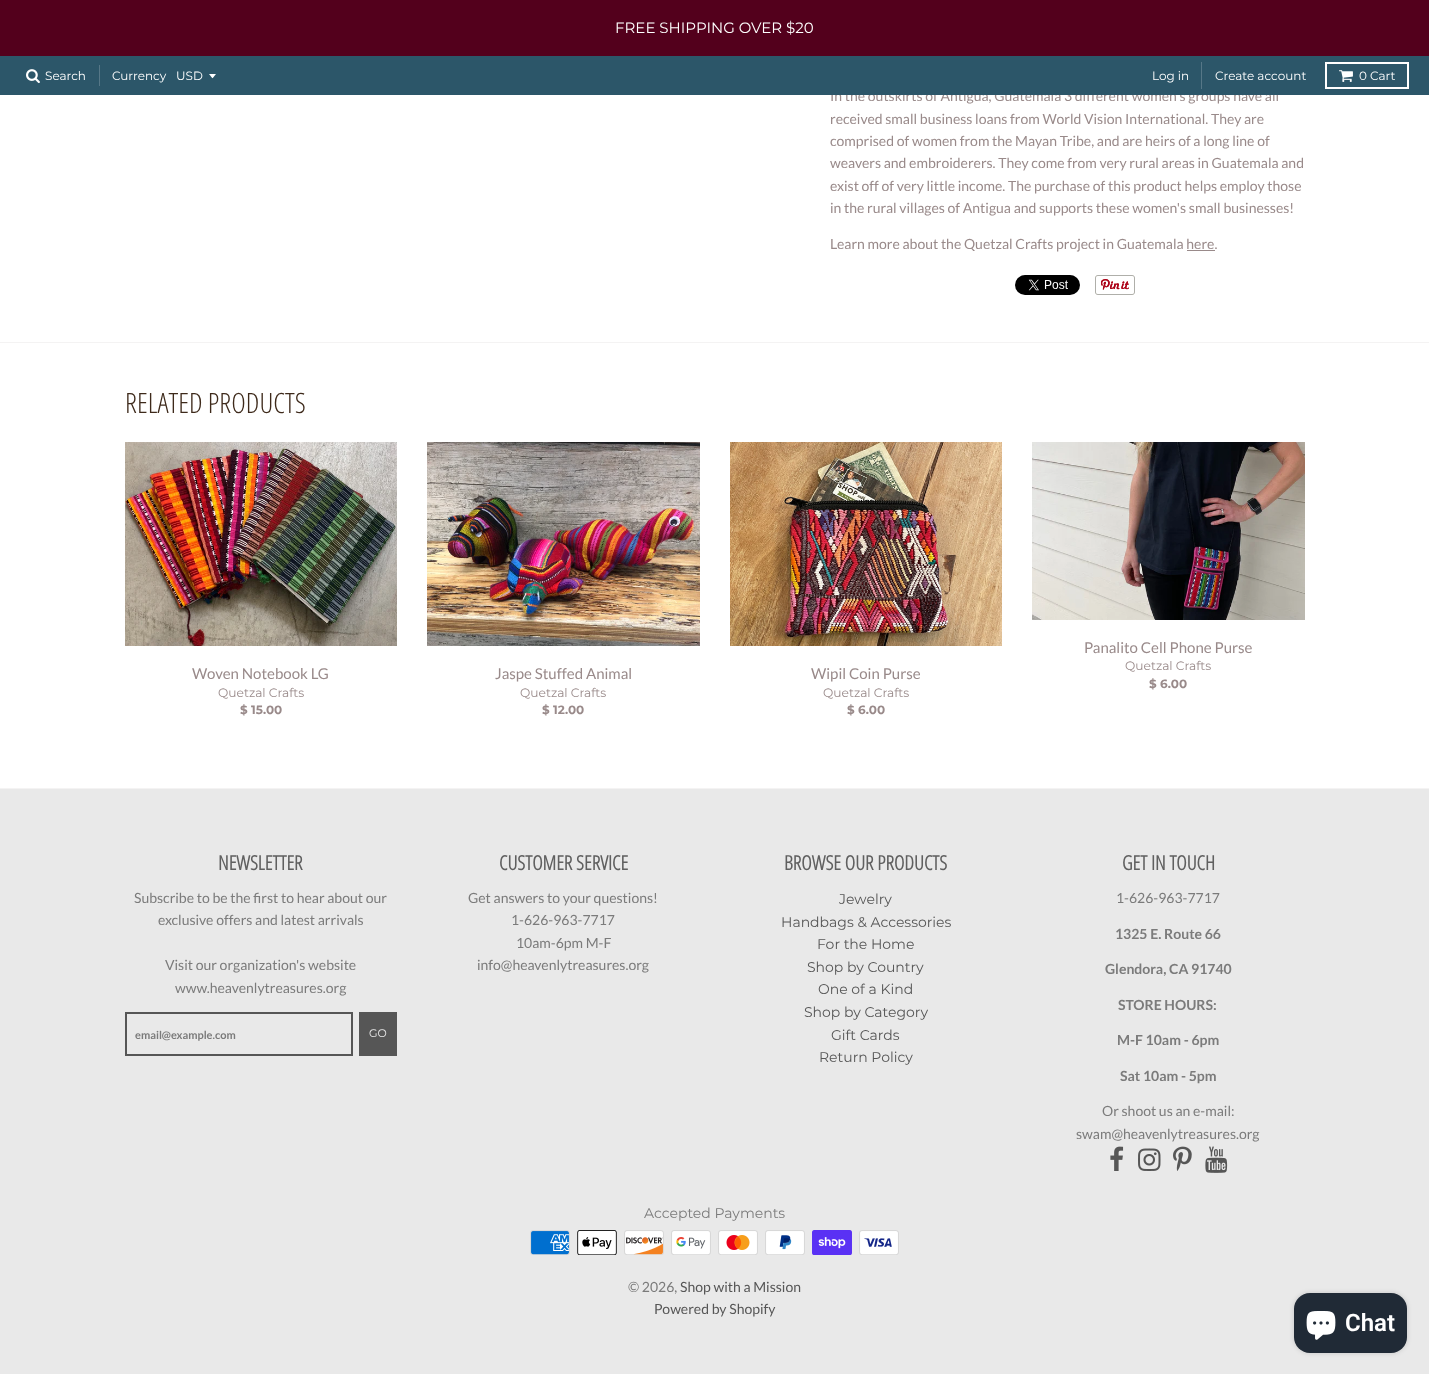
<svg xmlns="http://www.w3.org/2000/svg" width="1429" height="1374">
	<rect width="100%" height="100%" fill="#FFFFFF" />
	<rect x="0" y="0" width="1429" height="56" fill="#53001C" />
	<text x="615" y="33" font-family="Montserrat" font-size="15" fill="#FFFFFF">FREE SHIPPING OVER $20</text>
	<text x="830" y="101" font-family="Lato" font-size="14" fill="#998A8A">In the outskirts of Antigua, Guatemala 3 different women's groups have all</text>
	<rect x="0" y="56" width="1429" height="39" fill="#2C5669" />
	<image x="26" y="69" width="14" height="15" href="assets/img1.png" />
	<text x="45" y="80" font-family="Montserrat" font-size="12" fill="#FFFFFF">Search</text>
	<rect x="99" y="65" width="1" height="21" fill="#567787" />
	<text x="112" y="80" font-family="Montserrat" font-size="12" fill="#FFFFFF">Currency</text>
	<path d="M209 74C213.5 79.5 211.5 79.5 216 74Z" fill="#FFFFFF" />
	<text x="176" y="80" font-family="Montserrat" font-size="12" fill="#FFFFFF">USD</text>
	<rect x="1201" y="62" width="1" height="27" fill="#567787" />
	<g font-family="Montserrat" font-size="12" fill="#FFFFFF">
		<text x="1152" y="80">Log in</text>
		<text x="1215" y="80">Create account</text>
	</g>
	<rect x="1326" y="63" width="82" height="25" fill="none" stroke="#FFFFFF" stroke-width="2" />
	<image x="1339" y="70" width="14" height="12" href="assets/img2.png" />
	<text x="1359" y="80" font-family="Montserrat" font-size="12" fill="#FFFFFF">0 Cart</text>
	<rect x="0" y="342" width="1429" height="1" fill="#F4F3F3" />
	<g font-family="Lato" font-size="14" fill="#998A8A">
		<text x="830" y="124">received small business loans from World Vision International. They are</text>
		<text x="830" y="146">comprised of women from the Mayan Tribe, and are heirs of a long line of</text>
		<text x="830" y="168">weavers and embroiderers. They come from very rural areas in Guatemala and</text>
		<text x="830" y="191">exist off of very little income. The purchase of this product helps employ those</text>
		<text x="830" y="213">in the rural villages of Antigua and supports these women's small businesses!</text>
		<text x="830" y="249">Learn more about the Quetzal Crafts project in Guatemala here.</text>
	</g>
	<rect x="1187" y="250" width="28" height="1" fill="#998A8A" />
	<image x="1015" y="275" width="65" height="20" href="assets/img3.png" />
	<image x="1095" y="275" width="40" height="20" href="assets/img4.png" />
	<rect x="0" y="788" width="1429" height="1" fill="#F4F3F3" />
	<text x="125" y="413" font-family="Open Sans Condensed" font-size="28" font-weight="300" fill="#3E2A1B">RELATED PRODUCTS</text>
	<image x="125" y="442" width="272" height="204" href="assets/img5.png" />
	<text x="192" y="679" font-family="Lato" font-size="15" fill="#998A8A">Woven Notebook LG</text>
	<text x="218" y="697" font-family="Montserrat" font-size="12.25" fill="#998A8A">Quetzal Crafts</text>
	<text x="240" y="714" font-family="Montserrat" font-size="12" font-weight="700" fill="#998A8A">$ 15.00</text>
	<image x="427" y="442" width="273" height="204" href="assets/img6.png" />
	<text x="495" y="679" font-family="Lato" font-size="15" fill="#998A8A">Jaspe Stuffed Animal</text>
	<text x="520" y="697" font-family="Montserrat" font-size="12.25" fill="#998A8A">Quetzal Crafts</text>
	<text x="542" y="714" font-family="Montserrat" font-size="12" font-weight="700" fill="#998A8A">$ 12.00</text>
	<image x="730" y="442" width="272" height="204" href="assets/img7.png" />
	<text x="811" y="679" font-family="Lato" font-size="15" fill="#998A8A">Wipil Coin Purse</text>
	<text x="823" y="697" font-family="Montserrat" font-size="12.25" fill="#998A8A">Quetzal Crafts</text>
	<text x="847" y="714" font-family="Montserrat" font-size="12" font-weight="700" fill="#998A8A">$ 6.00</text>
	<image x="1032" y="442" width="273" height="178" href="assets/img8.png" />
	<text x="1084" y="653" font-family="Lato" font-size="15" fill="#998A8A">Panalito Cell Phone Purse</text>
	<text x="1125" y="670" font-family="Montserrat" font-size="12.25" fill="#998A8A">Quetzal Crafts</text>
	<text x="1149" y="688" font-family="Montserrat" font-size="12" font-weight="700" fill="#998A8A">$ 6.00</text>
	<rect x="0" y="789" width="1429" height="585" fill="#E9E9E9" />
	<text x="218" y="870" font-family="Open Sans Condensed" font-size="20" font-weight="700" fill="#606060">NEWSLETTER</text>
	<g font-family="Lato" font-size="14" fill="#7B7B7B">
		<text x="134" y="903">Subscribe to be the first to hear about our</text>
		<text x="158" y="925">exclusive offers and latest arrivals</text>
		<text x="165" y="970">Visit our organization's website</text>
		<text x="175" y="993">www.heavenlytreasures.org</text>
	</g>
	<rect x="126" y="1013" width="226" height="42" fill="none" stroke="#565656" stroke-width="2" />
	<text x="135" y="1039" font-family="Lato" font-size="11" font-weight="700" fill="#7B7B7B">email@example.com</text>
	<rect x="359" y="1012" width="38" height="44" fill="#565656" />
	<text x="369" y="1037" font-family="Montserrat" font-size="11" fill="#E9E9E9">GO</text>
	<text x="499" y="870" font-family="Open Sans Condensed" font-size="20" font-weight="700" fill="#606060">CUSTOMER SERVICE</text>
	<g font-family="Lato" font-size="14" fill="#7B7B7B">
		<text x="468" y="903">Get answers to your questions!</text>
		<text x="511" y="925">1-626-963-7717</text>
		<text x="516" y="948">10am-6pm M-F</text>
		<text x="477" y="970">info@heavenlytreasures.org</text>
	</g>
	<text x="784" y="870" font-family="Open Sans Condensed" font-size="20" font-weight="700" fill="#606060">BROWSE OUR PRODUCTS</text>
	<g font-family="Montserrat" font-size="14" fill="#565656">
		<text x="839" y="904">Jewelry</text>
		<text x="781" y="927">Handbags &amp; Accessories</text>
		<text x="817" y="949">For the Home</text>
		<text x="807" y="972">Shop by Country</text>
		<text x="818" y="994">One of a Kind</text>
		<text x="804" y="1017">Shop by Category</text>
		<text x="831" y="1040">Gift Cards</text>
		<text x="819" y="1062">Return Policy</text>
	</g>
	<text x="1122" y="870" font-family="Open Sans Condensed" font-size="20" font-weight="700" fill="#606060">GET IN TOUCH</text>
	<text x="1116" y="903" font-family="Lato" font-size="14" fill="#7B7B7B">1-626-963-7717</text>
	<g font-family="Lato" font-size="14" font-weight="700" fill="#7B7B7B">
		<text x="1115" y="939">1325 E. Route 66</text>
		<text x="1105" y="974">Glendora, CA 91740</text>
		<text x="1118" y="1010">STORE HOURS:</text>
		<text x="1117" y="1045">M-F 10am - 6pm</text>
		<text x="1120" y="1081">Sat 10am - 5pm</text>
	</g>
	<g font-family="Lato" font-size="14" fill="#7B7B7B">
		<text x="1102" y="1116">Or shoot us an e-mail:</text>
		<text x="1076" y="1139">swam@heavenlytreasures.org</text>
	</g>
	<image x="1110" y="1146" width="14" height="25" href="assets/img9.png" />
	<image x="1138" y="1148" width="23" height="23" href="assets/img10.png" />
	<image x="1173" y="1146" width="19" height="25" href="assets/img11.png" />
	<image x="1205" y="1146" width="23" height="27" href="assets/img12.png" />
	<text x="644" y="1218" font-family="Montserrat" font-size="14" fill="#7B7B7B">Accepted Payments</text>
	<image x="530" y="1230" width="40" height="25" href="assets/img13.png" />
	<image x="577" y="1230" width="40" height="25" href="assets/img14.png" />
	<image x="624" y="1230" width="40" height="25" href="assets/img15.png" />
	<image x="671" y="1230" width="40" height="25" href="assets/img16.png" />
	<image x="718" y="1230" width="40" height="25" href="assets/img17.png" />
	<image x="765" y="1230" width="40" height="25" href="assets/img18.png" />
	<image x="812" y="1230" width="40" height="25" href="assets/img19.png" />
	<image x="859" y="1230" width="40" height="25" href="assets/img20.png" />
	<text x="628" y="1292" font-family="Lato" font-size="14" fill="#7B7B7B">© 2026,</text>
	<g font-family="Lato" font-size="14" fill="#565656">
		<text x="680" y="1292">Shop with a Mission</text>
		<text x="654" y="1314">Powered by Shopify</text>
	</g>
	<rect x="1294" y="1293" width="113" height="60" rx="16" fill="#000000" fill-opacity="0.15" filter="blur(2.5px)" />
	<rect x="1294" y="1293" width="113" height="60" rx="16" fill="#202A36" />
	<image x="1306" y="1311" width="30" height="29" href="assets/img21.png" />
	<text x="1345" y="1331" font-family="Roboto" font-size="24" font-weight="600" fill="#FFFFFF">Chat</text>
</svg>
